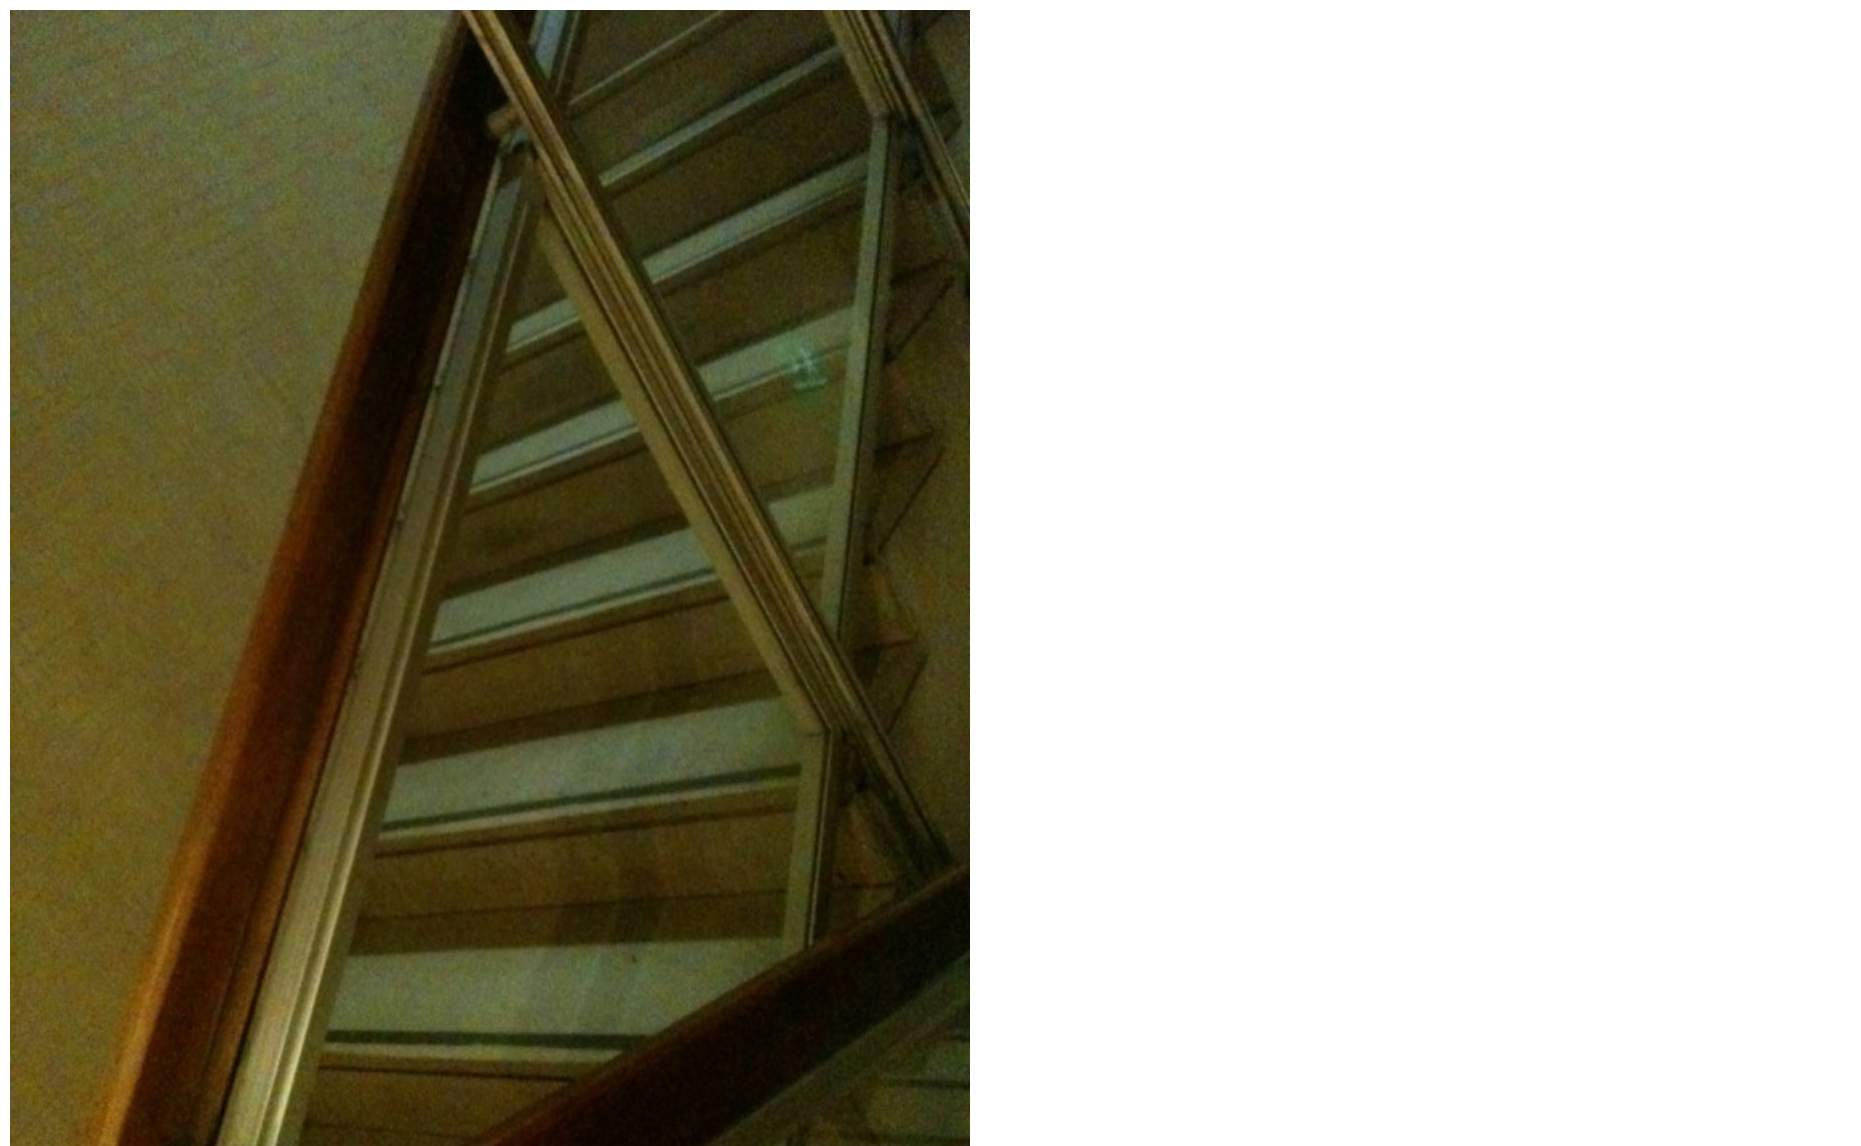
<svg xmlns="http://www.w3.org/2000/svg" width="1861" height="1146">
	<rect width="100%" height="100%" fill="#FFFFFF" />
	<image x="10" y="10" width="960" height="1136" href="assets/img1.png" />
</svg>
